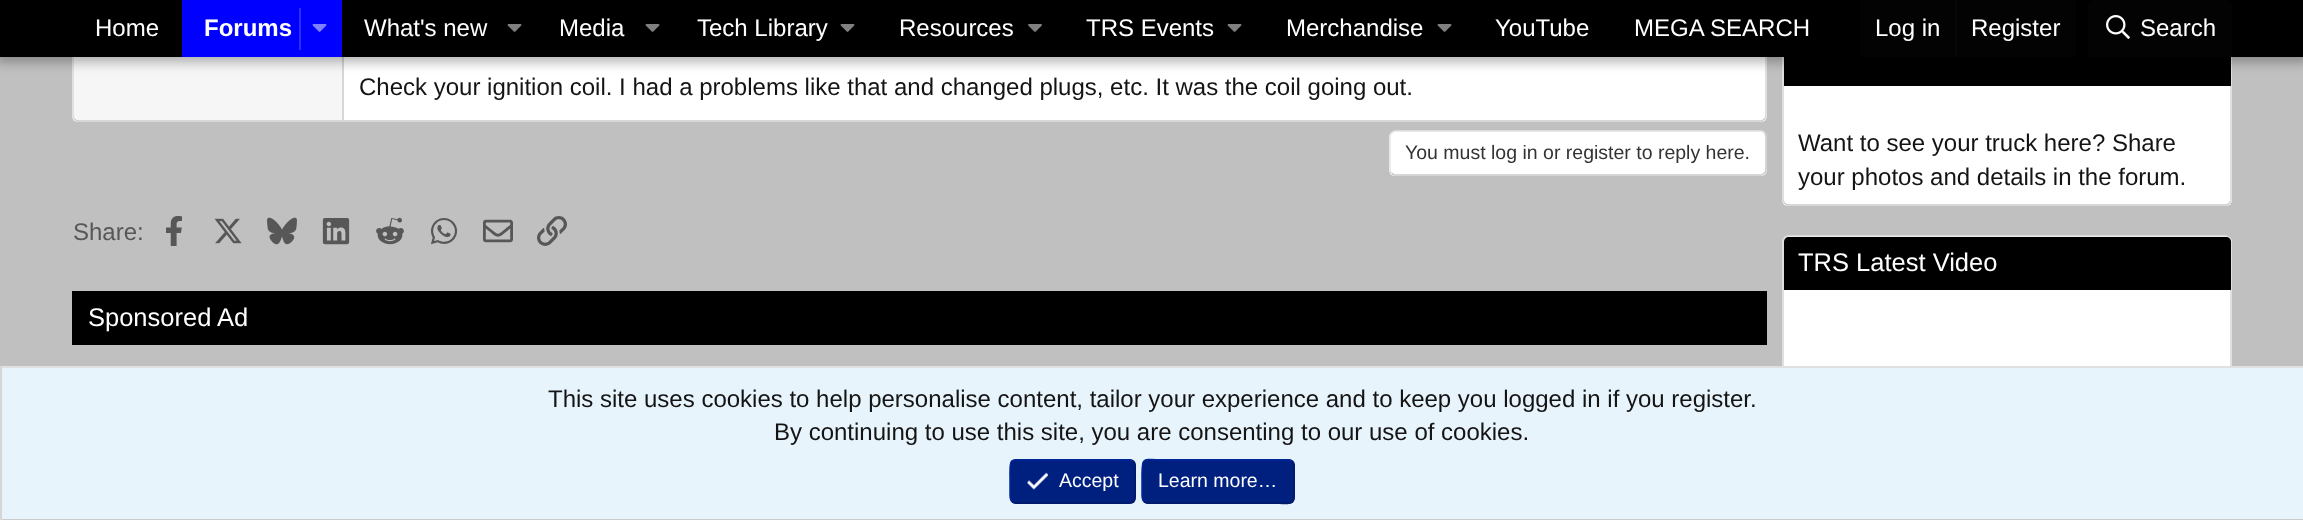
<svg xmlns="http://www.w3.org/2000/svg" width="2303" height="520">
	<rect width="100%" height="100%" fill="#C0C0C0" />
	<rect x="72" y="-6" width="1695" height="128" rx="6" fill="#FFFFFF" />
	<path d="M1764.5-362C1765.5-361 1766-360 1766-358.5V115.5C1766 117 1765.5 118 1764.5 119" fill="none" stroke="#D6D6D6" stroke-width="1.5" />
	<path d="M1764.5 119C1763.5 120 1762.5 121 1761 121H78C76.5 121 75.5 120 74.5 119" fill="none" stroke="#CCCCCC" stroke-width="1.5" />
	<path d="M74.5 119C73.5 118 73 117 73 115.5V-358.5C73-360 73.5-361 74.5-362" fill="none" stroke="#D6D6D6" stroke-width="1.5" />
	<path d="M79-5H344V120H79C76 120 74 118 74 115V0C74-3 76-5 79-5Z" fill="#F6F6F6" />
	<rect x="342" y="57" width="2" height="63" fill="#D6D6D6" />
	<rect x="1782" y="30" width="450" height="176" rx="6" fill="#FFFFFF" />
	<path d="M2229.5 32.5C2230.5 33.5 2231 34.5 2231 36V199.5C2231 201 2230.5 202 2229.5 203" fill="none" stroke="#D6D6D6" stroke-width="1.5" />
	<path d="M2229.5 203C2228.5 204 2227.5 205 2226 205H1788C1786.5 205 1785.5 204 1784.5 203" fill="none" stroke="#CCCCCC" stroke-width="1.5" />
	<path d="M1784.5 203C1783.5 202 1783 201 1783 199.5V36C1783 34.5 1783.5 33.5 1784.5 32.5" fill="none" stroke="#D6D6D6" stroke-width="1.5" />
	<rect x="1784" y="57" width="447" height="29" fill="#000000" />
	<rect x="-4" y="-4" width="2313" height="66" fill="#000000" fill-opacity="0.3" filter="blur(6px)" />
	<rect x="0" y="0" width="2303" height="57" fill="#000000" />
	<text x="95" y="36" font-family="Liberation Sans" font-size="24" fill="#FFFFFF">Home</text>
	<rect x="182" y="0" width="160" height="57" fill="#0000FF" />
	<text x="204" y="36" font-family="Liberation Sans" font-size="24" font-weight="700" fill="#FFFFFF">Forums</text>
	<rect x="299" y="8" width="2" height="42" fill="#2D2DFF" />
	<image x="312" y="24" width="15" height="8" href="assets/img1.png" />
	<text x="364" y="36" font-family="Liberation Sans" font-size="24" fill="#FFFFFF">What's new</text>
	<image x="507" y="24" width="15" height="8" href="assets/img2.png" />
	<text x="559" y="36" font-family="Liberation Sans" font-size="24" fill="#FFFFFF">Media</text>
	<image x="645" y="24" width="15" height="8" href="assets/img2.png" />
	<text x="697" y="36" font-family="Liberation Sans" font-size="24" fill="#FFFFFF">Tech Library</text>
	<image x="840" y="24" width="15" height="8" href="assets/img2.png" />
	<text x="899" y="36" font-family="Liberation Sans" font-size="24" fill="#FFFFFF">Resources</text>
	<image x="1028" y="24" width="14" height="8" href="assets/img3.png" />
	<text x="1086" y="36" font-family="Liberation Sans" font-size="24" fill="#FFFFFF">TRS Events</text>
	<image x="1227" y="24" width="15" height="8" href="assets/img2.png" />
	<text x="1286" y="36" font-family="Liberation Sans" font-size="24" fill="#FFFFFF">Merchandise</text>
	<image x="1437" y="24" width="15" height="8" href="assets/img2.png" />
	<g font-family="Liberation Sans" font-size="24" fill="#FFFFFF">
		<text x="1495" y="36">YouTube</text>
		<text x="1634" y="36">MEGA SEARCH</text>
	</g>
	<rect x="1860" y="0" width="216" height="57" fill="#030303" />
	<text x="1875" y="36" font-family="Liberation Sans" font-size="24" fill="#FFFFFF">Log in</text>
	<rect x="1955" y="0" width="2" height="57" fill="#060606" />
	<text x="1971" y="36" font-family="Liberation Sans" font-size="24" fill="#FFFFFF">Register</text>
	<path d="M2094 0H2226C2229.5 0 2232 2.5 2232 6V57H2088V6C2088 2.5 2090.5 0 2094 0Z" fill="#030303" />
	<image x="2106" y="15" width="24" height="24" href="assets/img4.png" />
	<text x="2140" y="36" font-family="Liberation Sans" font-size="24" fill="#FFFFFF">Search</text>
	<text x="359" y="95" font-family="Liberation Sans" font-size="24" fill="#141414">Check your ignition coil. I had a problems like that and changed plugs, etc. It was the coil going out.</text>
	<rect x="1389" y="131" width="378" height="45" rx="6" fill="#FFFFFF" />
	<path d="M1764.5 133C1765.5 134 1766 135 1766 136.5V169.5C1766 171 1765.5 172 1764.5 173C1763.5 174 1762.5 175 1761 175H1395C1393.5 175 1392.5 174 1391.5 173" fill="none" stroke="#C9C9C9" stroke-width="1.5" />
	<path d="M1391.5 173C1390.5 172 1390 171 1390 169.5V136.5C1390 135 1390.5 134 1391.5 133C1392.5 132 1393.5 131 1395 131H1761C1762.5 131 1763.5 132 1764.5 133" fill="none" stroke="#E3E3E3" stroke-width="1.5" />
	<text x="1405" y="159" font-family="Liberation Sans" font-size="19.5" fill="#333333">You must log in or register to reply here.</text>
	<text x="73" y="240" font-family="Liberation Sans" font-size="24" fill="#575757">Share:</text>
	<image x="166" y="216" width="16" height="30" href="assets/img5.png" />
	<image x="214" y="218" width="28" height="26" href="assets/img6.png" />
	<image x="267" y="217" width="30" height="28" href="assets/img7.png" />
	<image x="322" y="218" width="28" height="27" href="assets/img8.png" />
	<image x="376" y="217" width="28" height="28" href="assets/img9.png" />
	<image x="431" y="218" width="27" height="27" href="assets/img10.png" />
	<image x="483" y="219" width="30" height="24" href="assets/img11.png" />
	<image x="537" y="216" width="30" height="30" href="assets/img12.png" />
	<rect x="72" y="291" width="1695" height="54" fill="#000000" />
	<text x="88" y="326" font-family="Liberation Sans" font-size="25.5" fill="#FFFFFF">Sponsored Ad</text>
	<g font-family="Liberation Sans" font-size="24" fill="#141414">
		<text x="1798" y="151">Want to see your truck here? Share</text>
		<text x="1798" y="185">your photos and details in the forum.</text>
	</g>
	<rect x="1782" y="236" width="450" height="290" rx="6" fill="#FFFFFF" />
	<path d="M1784.5 238C1785.5 237 1786.5 236 1788 236H2226C2227.5 236 2228.5 237 2229.5 238" fill="none" stroke="#E0E0E0" stroke-width="1.5" />
	<path d="M2229.5 238C2230.5 239 2231 240 2231 241.5V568.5C2231 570 2230.5 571 2229.5 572" fill="none" stroke="#D6D6D6" stroke-width="1.5" />
	<path d="M1784.5 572C1783.5 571 1783 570 1783 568.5V241.5C1783 240 1783.5 239 1784.5 238" fill="none" stroke="#D6D6D6" stroke-width="1.5" />
	<path d="M1789 237H2226C2229 237 2231 239 2231 242V290H1784V242C1784 239 1786 237 1789 237Z" fill="#000000" />
	<text x="1798" y="271" font-family="Liberation Sans" font-size="25.5" fill="#FFFFFF">TRS Latest Video</text>
	<rect x="2" y="368" width="2301" height="151" fill="#E8F4FC" />
	<rect x="0" y="366" width="2303" height="2" fill="#E0E0E0" />
	<rect x="0" y="519" width="2303" height="1" fill="#CCCCCC" />
	<rect x="0" y="366" width="2" height="154" fill="#D6D6D6" />
	<g font-family="Liberation Sans" font-size="24" fill="#141414">
		<text x="548" y="407">This site uses cookies to help personalise content, tailor your experience and to keep you logged in if you register.</text>
		<text x="774" y="440">By continuing to use this site, you are consenting to our use of cookies.</text>
	</g>
	<rect x="1010" y="459" width="126" height="45" rx="6" fill="#002080" />
	<path d="M1133 461.5C1135.5 463.5 1135 467.5 1135 470.5V481.5C1135 507.5 1138 503 1110.5 503H1015.5C1014 503 1013 502.5 1012 501.5" fill="none" stroke="#001A67" stroke-width="1.5" />
	<path d="M1012 501.5C1009.5 499.5 1010 495.5 1010 492.5V481.5C1010 455.5 1007 460 1034.5 460H1129.5C1131 460 1132 460.5 1133 461.5" fill="none" stroke="#00269A" stroke-width="1.5" />
	<image x="1027" y="472" width="22" height="18" href="assets/img13.png" />
	<text x="1059" y="487" font-family="Liberation Sans" font-size="19.5" fill="#FFFFFF">Accept</text>
	<rect x="1142" y="459" width="153" height="45" rx="6" fill="#002080" />
	<path d="M1292 461.5C1294.5 463.5 1294 467.5 1294 470.5V481.5C1294 509 1296.5 503 1265 503H1147.5C1146 503 1145 502.5 1144 501.5" fill="none" stroke="#001A67" stroke-width="1.5" />
	<path d="M1144 501.5C1141.5 499.5 1142 495.5 1142 492.5V481.5C1142 454 1139.5 460 1171 460H1288.5C1290 460 1291 460.5 1292 461.5" fill="none" stroke="#00269A" stroke-width="1.5" />
	<text x="1158" y="487" font-family="Liberation Sans" font-size="19.5" fill="#FFFFFF">Learn more…</text>
</svg>
